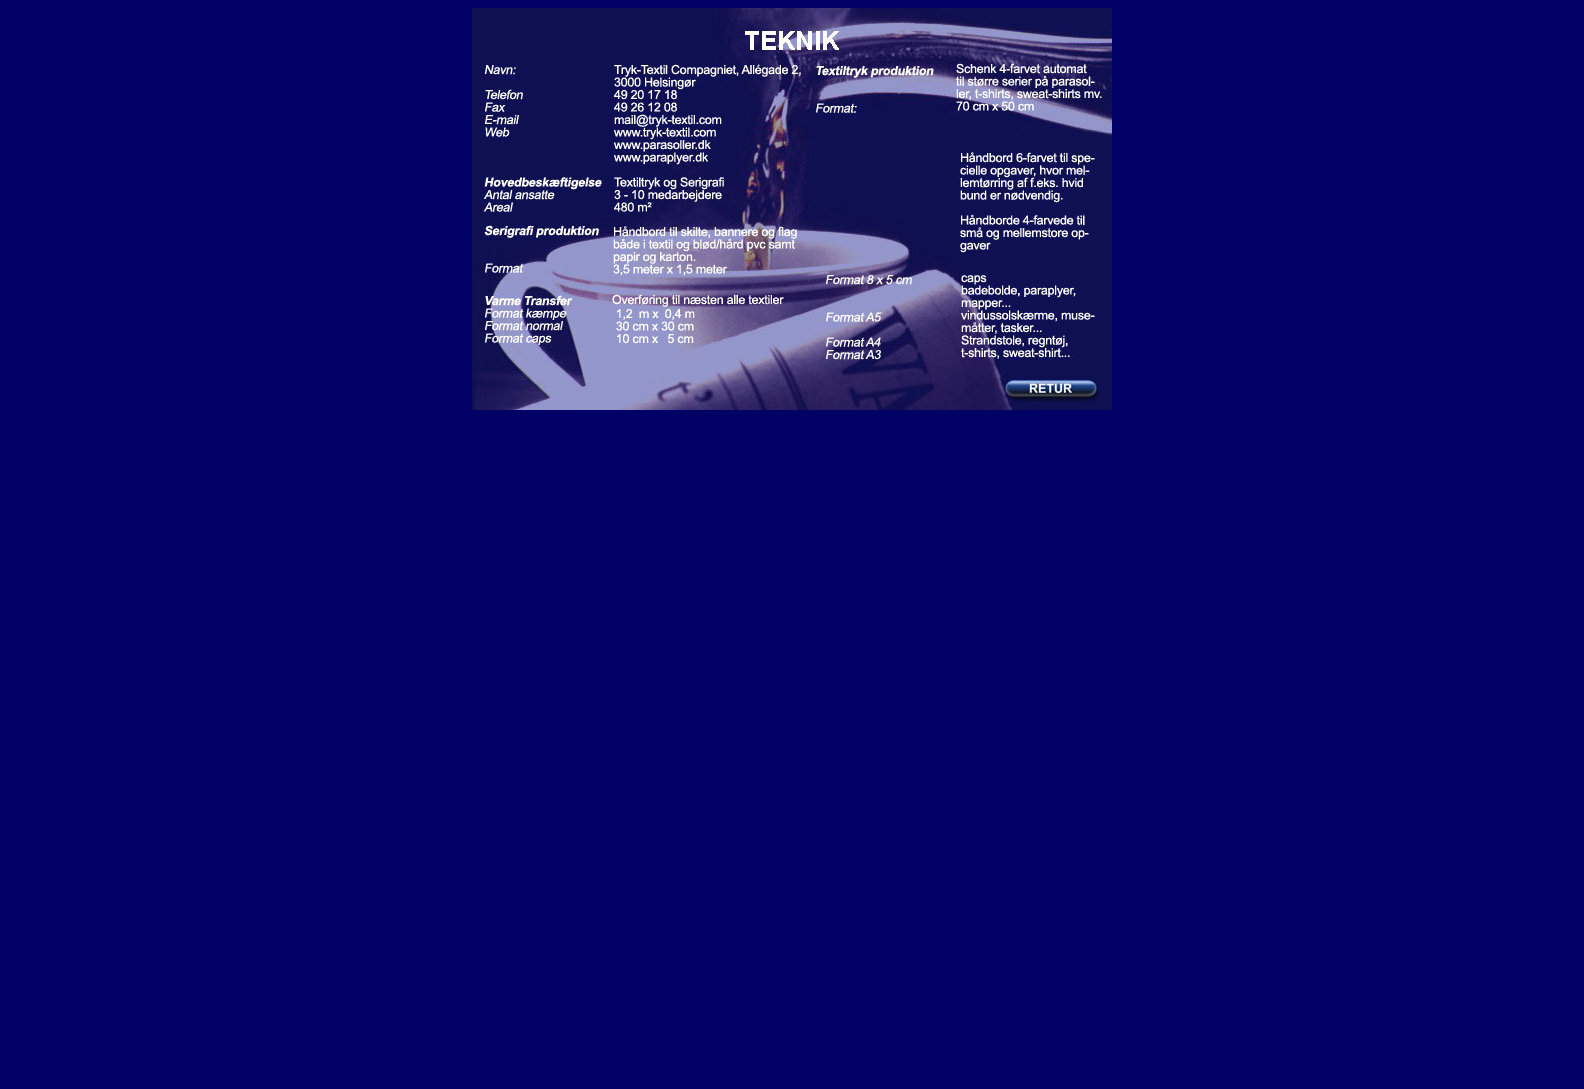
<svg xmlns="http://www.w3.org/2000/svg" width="1584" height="1089">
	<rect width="100%" height="100%" fill="#000066" />
	<image x="472" y="8" width="157" height="402" href="assets/img1.png" />
	<image x="629" y="8" width="192" height="402" href="assets/img2.png" />
	<image x="821" y="8" width="291" height="362" href="assets/img3.png" />
	<image x="821" y="370" width="176" height="40" href="assets/img4.png" />
	<image x="997" y="370" width="115" height="40" href="assets/img5.png" />
</svg>
